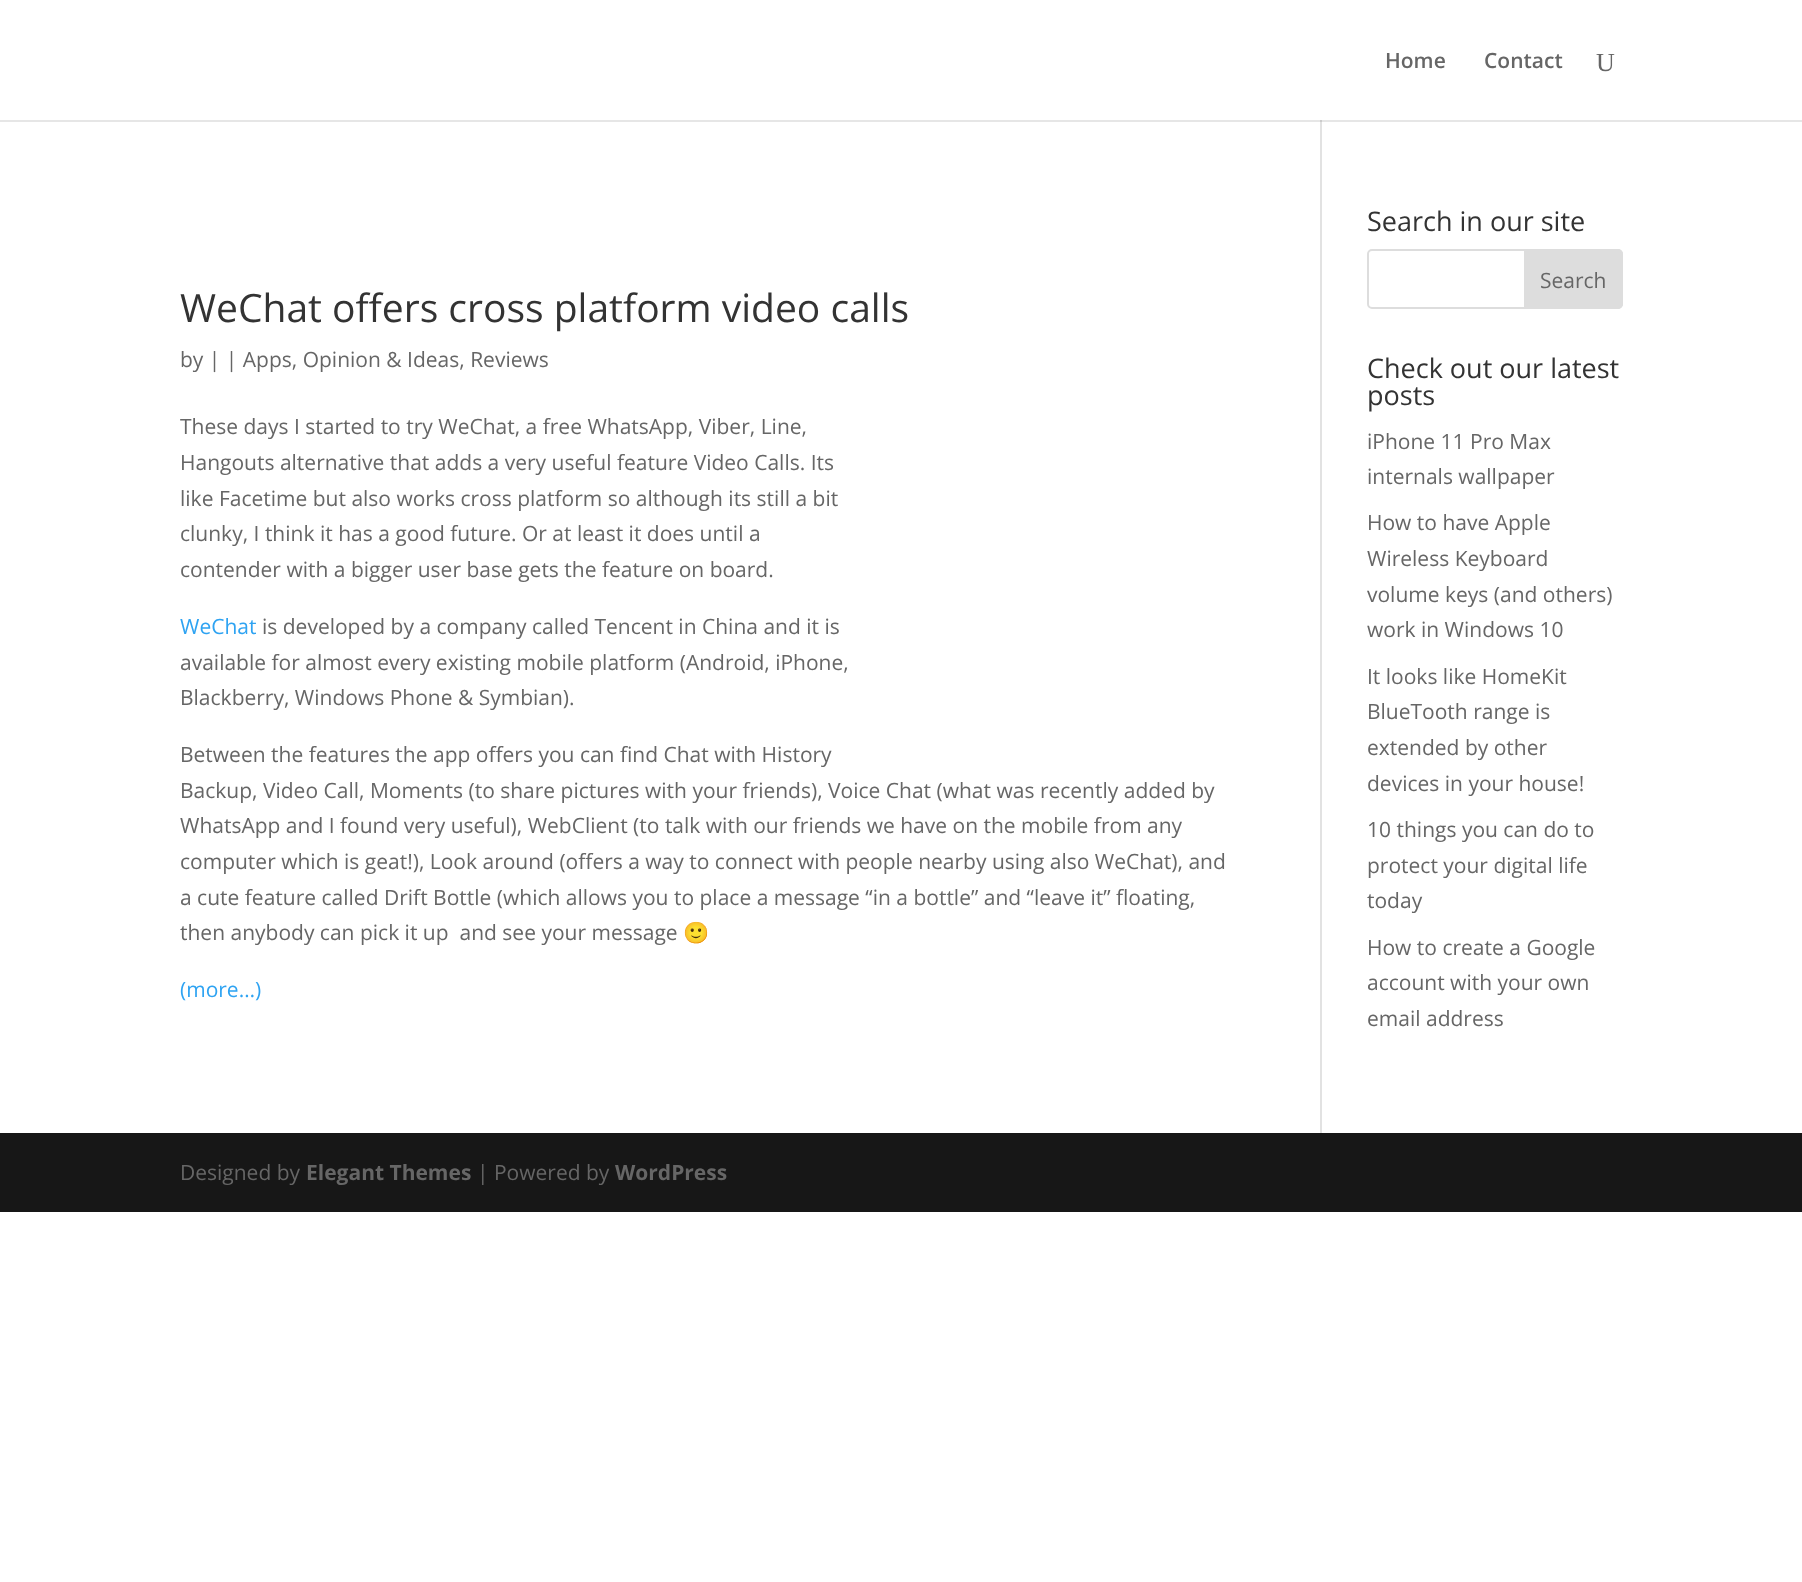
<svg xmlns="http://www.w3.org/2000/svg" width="1802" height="1582">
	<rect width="100%" height="100%" fill="#FFFFFF" />
	<rect x="0" y="120" width="1802" height="2" fill="#E6E6E6" />
	<g font-family="Open Sans" font-size="21" font-weight="600" fill="#666666">
		<text x="1385" y="68">Home</text>
		<text x="1484" y="68">Contact</text>
	</g>
	<text x="1596" y="71" font-family="Liberation Serif" font-size="26" fill="#666666">U</text>
	<rect x="1320" y="120" width="2" height="1013" fill="#E2E2E2" />
	<rect x="1320" y="120" width="2" height="2" fill="#CBCBCB" />
	<text x="180" y="322" font-family="Open Sans" font-size="39" fill="#333333">WeChat offers cross platform video calls</text>
	<g font-family="Open Sans" font-size="21" fill="#666666">
		<text x="180" y="367">by | | Apps, Opinion &amp; Ideas, Reviews</text>
		<text x="180" y="434">These days I started to try WeChat, a free WhatsApp, Viber, Line,</text>
		<text x="180" y="470">Hangouts alternative that adds a very useful feature Video Calls. Its</text>
		<text x="180" y="506">like Facetime but also works cross platform so although its still a bit</text>
		<text x="180" y="541">clunky, I think it has a good future. Or at least it does until a</text>
		<text x="180" y="577">contender with a bigger user base gets the feature on board.</text>
	</g>
	<text x="180" y="634" font-family="Open Sans" font-size="21" fill="#2EA3F2">WeChat</text>
	<g font-family="Open Sans" font-size="21" fill="#666666">
		<text x="262" y="634">is developed by a company called Tencent in China and it is</text>
		<text x="180" y="670">available for almost every existing mobile platform (Android, iPhone,</text>
		<text x="180" y="705">Blackberry, Windows Phone &amp; Symbian).</text>
		<text x="180" y="762">Between the features the app offers you can find Chat with History</text>
		<text x="180" y="798">Backup, Video Call, Moments (to share pictures with your friends), Voice Chat (what was recently added by</text>
		<text x="180" y="833">WhatsApp and I found very useful), WebClient (to talk with our friends we have on the mobile from any</text>
		<text x="180" y="869">computer which is geat!), Look around (offers a way to connect with people nearby using also WeChat), and</text>
		<text x="180" y="905">a cute feature called Drift Bottle (which allows you to place a message “in a bottle” and “leave it” floating,</text>
		<text x="180" y="940" xml:space="preserve">then anybody can pick it up  and see your message</text>
	</g>
	<text x="683" y="940" font-family="Noto Color Emoji" font-size="21" fill="#666666">🙂</text>
	<text x="180" y="997" font-family="Open Sans" font-size="21" fill="#2EA3F2">(more…)</text>
	<text x="1367" y="231" font-family="Open Sans" font-size="27" fill="#333333">Search in our site</text>
	<rect x="1368" y="250" width="254" height="58" rx="4" fill="none" stroke="#DDDDDD" stroke-width="2" />
	<path d="M1525 250H1618C1620 250 1622 252 1622 254V304C1622 306 1620 308 1618 308H1525Z" fill="#DDDDDD" stroke="#DDDDDD" stroke-width="2" />
	<text x="1540" y="288" font-family="Open Sans" font-size="21" fill="#666666">Search</text>
	<g font-family="Open Sans" font-size="27" fill="#333333">
		<text x="1367" y="378">Check out our latest</text>
		<text x="1367" y="405">posts</text>
	</g>
	<g font-family="Open Sans" font-size="21" fill="#666666">
		<text x="1367" y="449">iPhone 11 Pro Max</text>
		<text x="1367" y="484">internals wallpaper</text>
		<text x="1367" y="530">How to have Apple</text>
		<text x="1367" y="566">Wireless Keyboard</text>
		<text x="1367" y="602">volume keys (and others)</text>
		<text x="1367" y="637">work in Windows 10</text>
		<text x="1367" y="684">It looks like HomeKit</text>
		<text x="1367" y="719">BlueTooth range is</text>
		<text x="1367" y="755">extended by other</text>
		<text x="1367" y="791">devices in your house!</text>
		<text x="1367" y="837">10 things you can do to</text>
		<text x="1367" y="873">protect your digital life</text>
		<text x="1367" y="908">today</text>
		<text x="1367" y="955">How to create a Google</text>
		<text x="1367" y="990">account with your own</text>
		<text x="1367" y="1026">email address</text>
	</g>
	<rect x="0" y="1133" width="1802" height="79" fill="#171717" />
	<text x="180" y="1180" font-family="Open Sans" font-size="21" fill="#666666">Designed by</text>
	<text x="306" y="1180" font-family="Open Sans" font-size="21" font-weight="700" fill="#666666">Elegant Themes</text>
	<text x="477" y="1180" font-family="Open Sans" font-size="21" fill="#666666">| Powered by</text>
	<text x="615" y="1180" font-family="Open Sans" font-size="21" font-weight="700" fill="#666666">WordPress</text>
</svg>
